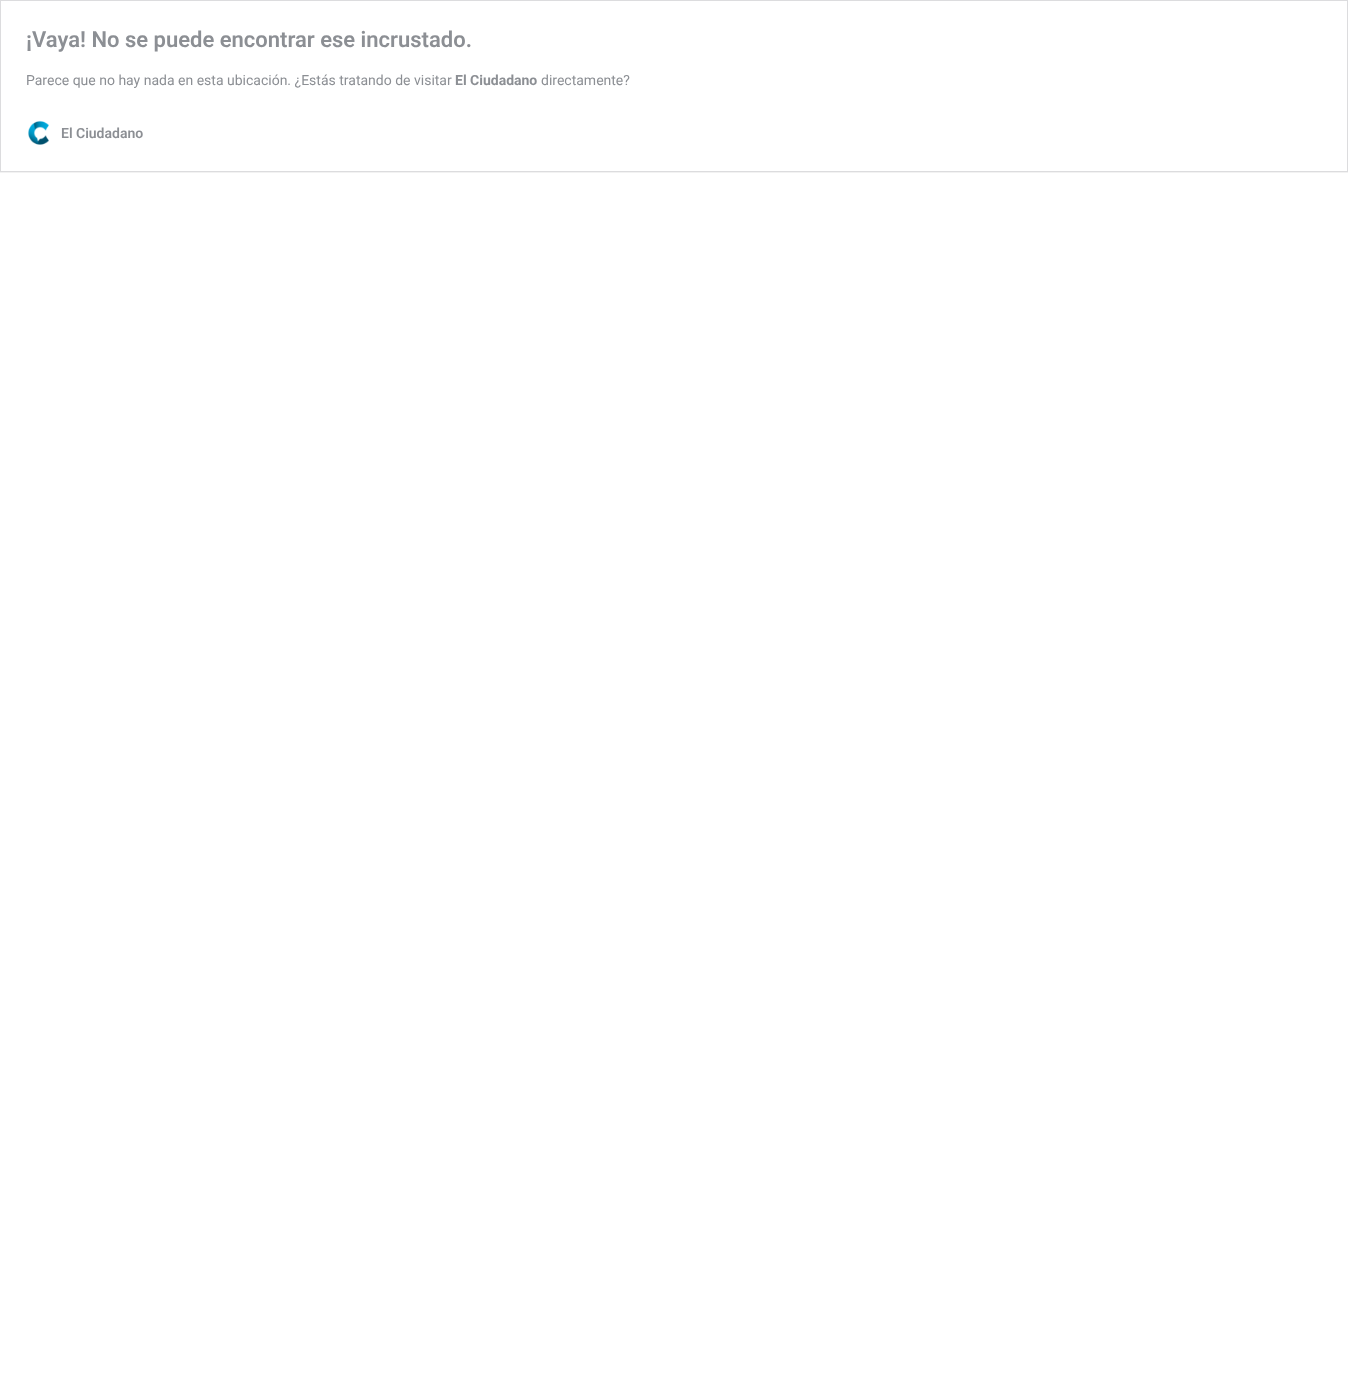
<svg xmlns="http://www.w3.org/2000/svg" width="1348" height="1376">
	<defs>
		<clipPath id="clip1"><rect x="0" y="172" width="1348" height="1" /></clipPath>
	</defs>
	<rect width="100%" height="100%" fill="#FFFFFF" />
	<g clip-path="url(#clip1)">
		<rect x="0" y="1" width="1348" height="172" fill="#000000" fill-opacity="0.05" filter="blur(0.5px)" />
	</g>
	<rect x="0.5" y="0.5" width="1347" height="171" fill="none" stroke="#DCDCDE" />
	<text x="26" y="47" font-family="Roboto" font-size="22" font-weight="600" fill="#8C8F94">¡Vaya! No se puede encontrar ese incrustado.</text>
	<text x="26" y="85" font-family="Roboto" font-size="14" fill="#8C8F94">Parece que no hay nada en esta ubicación. ¿Estás tratando de visitar</text>
	<text x="455" y="85" font-family="Roboto" font-size="14" font-weight="700" fill="#8C8F94">El Ciudadano</text>
	<text x="541" y="85" font-family="Roboto" font-size="14" fill="#8C8F94">directamente?</text>
	<image x="28" y="120" width="21" height="25" href="assets/img1.png" />
	<text x="61" y="138" font-family="Roboto" font-size="14" font-weight="600" fill="#8C8F94">El Ciudadano</text>
</svg>
